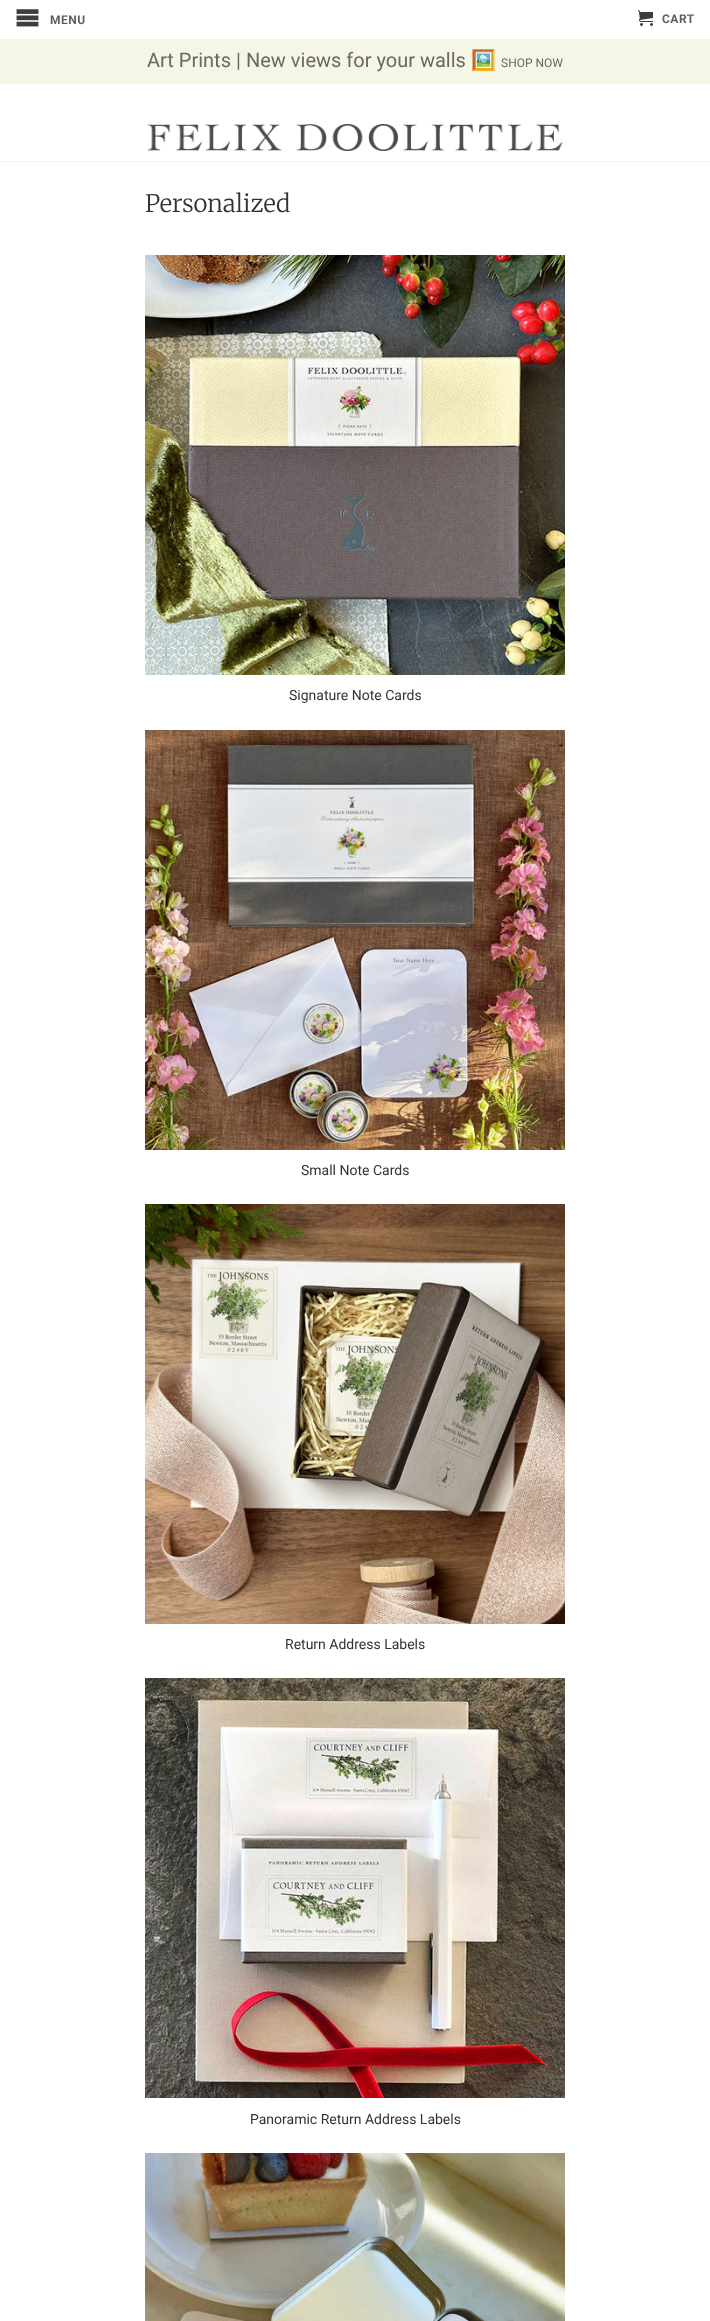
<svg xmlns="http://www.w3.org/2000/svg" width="710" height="2321">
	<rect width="100%" height="100%" fill="#FFFFFF" />
	<rect x="0" y="39" width="710" height="1" fill="#F2F2F2" />
	<image x="16" y="9" width="23" height="18" href="assets/img1.png" />
	<text x="50" y="24" font-family="Roboto" font-size="12" font-weight="700" letter-spacing="0.5" fill="#605E59">MENU</text>
	<image x="638" y="10" width="15" height="16" href="assets/img2.png" />
	<text x="662" y="23" font-family="Roboto" font-size="12" font-weight="700" letter-spacing="0.5" fill="#605E59">CART</text>
	<rect x="0" y="161" width="710" height="1" fill="#F1F1F1" />
	<rect x="0" y="40" width="710" height="44" fill="#F5F6E6" />
	<text x="147" y="67" font-family="Roboto" font-size="20" fill="#6B6860">Art Prints</text>
	<text x="236" y="67" font-family="'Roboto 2'" font-size="20" fill="#6B6860">|</text>
	<text x="246" y="67" font-family="Roboto" font-size="20" fill="#6B6860">New views for your walls</text>
	<text x="471" y="67" font-family="Noto Color Emoji" font-size="20" fill="#6B6860">🖼️</text>
	<text x="501" y="67" font-family="Roboto" font-size="12" fill="#6B6860">SHOP NOW</text>
	<image x="147" y="124" width="416" height="27" href="assets/img3.png" />
	<text x="145" y="212" font-family="Merriweather" font-size="24" font-weight="300" fill="#353330">Personalized</text>
	<image x="145" y="255" width="420" height="420" href="assets/img4.png" />
	<text x="289" y="700" font-family="Roboto" font-size="14" fill="#353330">Signature Note Cards</text>
	<image x="145" y="730" width="420" height="420" href="assets/img5.png" />
	<text x="301" y="1175" font-family="Roboto" font-size="14" fill="#353330">Small Note Cards</text>
	<image x="145" y="1204" width="420" height="420" href="assets/img6.png" />
	<text x="285" y="1649" font-family="Roboto" font-size="14" fill="#353330">Return Address Labels</text>
	<image x="145" y="1678" width="420" height="420" href="assets/img7.png" />
	<text x="250" y="2124" font-family="Roboto" font-size="14" fill="#353330">Panoramic Return Address Labels</text>
	<image x="145" y="2153" width="420" height="168" href="assets/img8.png" />
</svg>
